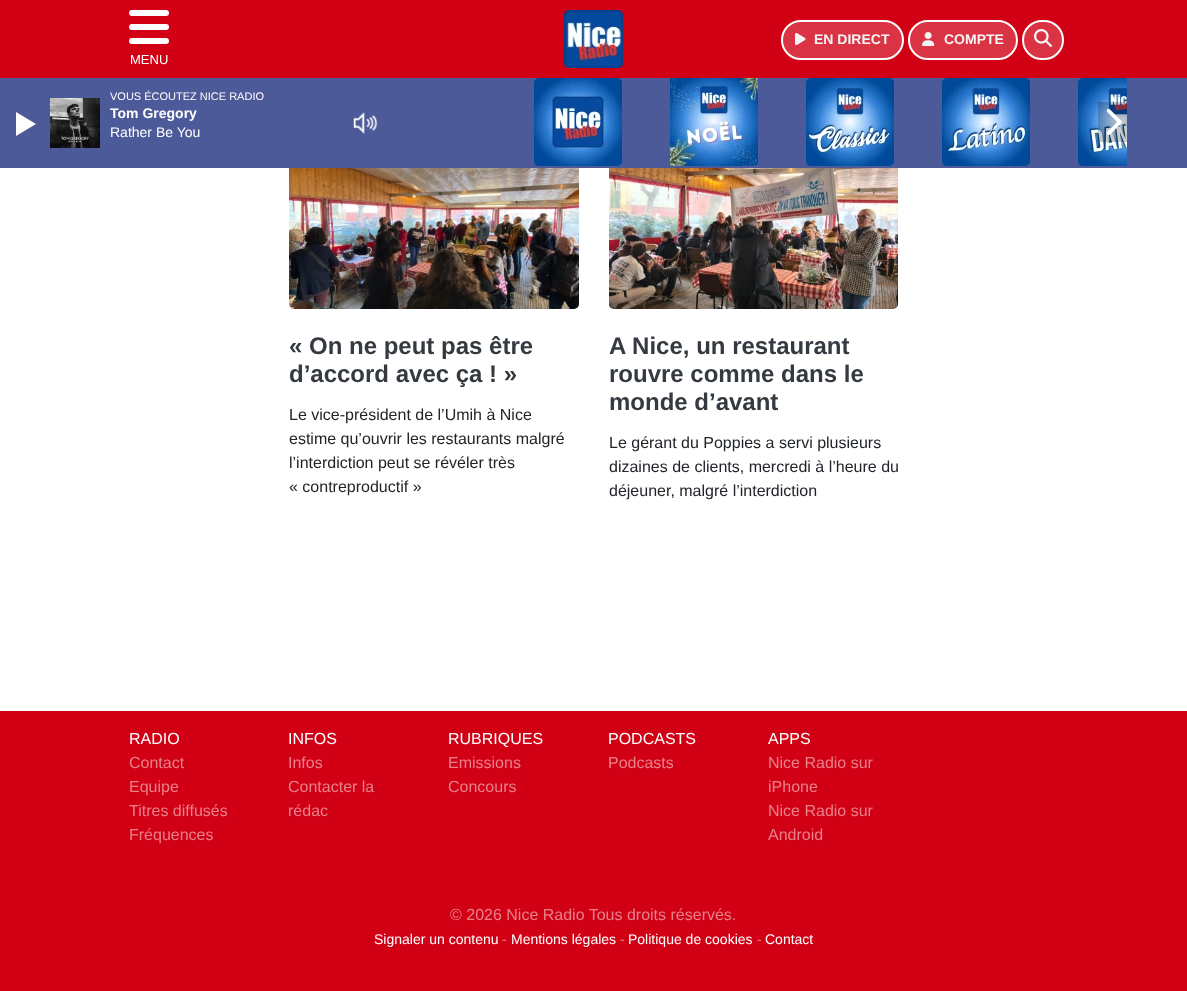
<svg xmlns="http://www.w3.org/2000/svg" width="1187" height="991">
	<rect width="100%" height="100%" fill="#FFFFFF" />
	<rect x="0" y="0" width="1187" height="78" fill="#D10015" />
	<image x="564" y="10" width="59" height="58" href="assets/img1.png" />
	<rect x="782" y="21" width="121" height="38" rx="19" fill="#DA3344" stroke="#FFFFFF" stroke-width="2" />
	<image x="795" y="32" width="11" height="14" href="assets/img2.png" />
	<text x="814" y="44" font-family="Liberation Sans" font-size="14" font-weight="700" fill="#F5F5F5">EN DIRECT</text>
	<rect x="909" y="21" width="108" height="38" rx="19" fill="#DA3344" stroke="#FFFFFF" stroke-width="2" />
	<image x="922" y="32" width="13" height="14" href="assets/img3.png" />
	<text x="944" y="44" font-family="Liberation Sans" font-size="14" font-weight="700" fill="#F5F5F5">COMPTE</text>
	<rect x="1023" y="21" width="40" height="38" rx="19" fill="#DA3344" stroke="#FFFFFF" stroke-width="2" />
	<image x="1034" y="29" width="18" height="18" href="assets/img4.png" />
	<rect x="129" y="10" width="40" height="6" rx="3" fill="#FFFFFF" />
	<rect x="129" y="24" width="40" height="6" rx="3" fill="#FFFFFF" />
	<rect x="129" y="38" width="40" height="6" rx="3" fill="#FFFFFF" />
	<text x="130" y="64" font-family="Liberation Sans" font-size="13" fill="#FFFFFF">MENU</text>
	<image x="289" y="168" width="290" height="141" href="assets/img5.png" />
	<g font-family="Liberation Sans" font-size="24" font-weight="700" fill="#343A40">
		<text x="289" y="354">« On ne peut pas être</text>
		<text x="289" y="382">d’accord avec ça ! »</text>
	</g>
	<g font-family="Liberation Sans" font-size="16" fill="#212529">
		<text x="289" y="420">Le vice-président de l’Umih à Nice</text>
		<text x="289" y="444">estime qu’ouvrir les restaurants malgré</text>
		<text x="289" y="468">l’interdiction peut se révéler très</text>
		<text x="289" y="492">« contreproductif »</text>
	</g>
	<image x="609" y="168" width="289" height="141" href="assets/img6.png" />
	<g font-family="Liberation Sans" font-size="24" font-weight="700" fill="#343A40">
		<text x="609" y="354">A Nice, un restaurant</text>
		<text x="609" y="382">rouvre comme dans le</text>
		<text x="609" y="410">monde d’avant</text>
	</g>
	<g font-family="Liberation Sans" font-size="16" fill="#212529">
		<text x="609" y="448">Le gérant du Poppies a servi plusieurs</text>
		<text x="609" y="472">dizaines de clients, mercredi à l’heure du</text>
		<text x="609" y="496">déjeuner, malgré l’interdiction</text>
	</g>
	<rect x="0" y="711" width="1187" height="280" fill="#D10015" />
	<text x="129" y="744" font-family="Liberation Sans" font-size="16" fill="#FFFFFF">RADIO</text>
	<g font-family="Liberation Sans" font-size="16" fill="#E8808A">
		<text x="129" y="768">Contact</text>
		<text x="129" y="792">Equipe</text>
		<text x="129" y="816">Titres diffusés</text>
		<text x="129" y="840">Fréquences</text>
	</g>
	<text x="288" y="744" font-family="Liberation Sans" font-size="16" fill="#FFFFFF">INFOS</text>
	<g font-family="Liberation Sans" font-size="16" fill="#E8808A">
		<text x="288" y="768">Infos</text>
		<text x="288" y="792">Contacter la</text>
		<text x="288" y="816">rédac</text>
	</g>
	<text x="448" y="744" font-family="Liberation Sans" font-size="16" fill="#FFFFFF">RUBRIQUES</text>
	<g font-family="Liberation Sans" font-size="16" fill="#E8808A">
		<text x="448" y="768">Emissions</text>
		<text x="448" y="792">Concours</text>
	</g>
	<text x="608" y="744" font-family="Liberation Sans" font-size="16" fill="#FFFFFF">PODCASTS</text>
	<text x="608" y="768" font-family="Liberation Sans" font-size="16" fill="#E8808A">Podcasts</text>
	<text x="768" y="744" font-family="Liberation Sans" font-size="16" fill="#FFFFFF">APPS</text>
	<g font-family="Liberation Sans" font-size="16" fill="#E8808A">
		<text x="768" y="768">Nice Radio sur</text>
		<text x="768" y="792">iPhone</text>
		<text x="768" y="816">Nice Radio sur</text>
		<text x="768" y="840">Android</text>
		<text x="450" y="920">© 2026 Nice Radio Tous droits réservés.</text>
	</g>
	<text x="374" y="944" font-family="Liberation Sans" font-size="14" fill="#FFFFFF">Signaler un contenu</text>
	<text x="502" y="944" font-family="Liberation Sans" font-size="14" fill="#E8808A">-</text>
	<text x="511" y="944" font-family="Liberation Sans" font-size="14" fill="#FFFFFF">Mentions légales</text>
	<text x="620" y="944" font-family="Liberation Sans" font-size="14" fill="#E8808A">-</text>
	<text x="628" y="944" font-family="Liberation Sans" font-size="14" fill="#FFFFFF">Politique de cookies</text>
	<text x="757" y="944" font-family="Liberation Sans" font-size="14" fill="#E8808A">-</text>
	<text x="765" y="944" font-family="Liberation Sans" font-size="14" fill="#FFFFFF">Contact</text>
	<rect x="0" y="78" width="1187" height="90" fill="#4D5A99" />
	<text x="110" y="100" font-family="Liberation Sans" font-size="11" fill="#FFFFFF">VOUS ÉCOUTEZ NICE RADIO</text>
	<image x="50" y="98" width="50" height="50" href="assets/img7.png" />
	<text x="110" y="118" font-family="Liberation Sans" font-size="14" font-weight="700" fill="#FFFFFF">Tom Gregory</text>
	<text x="110" y="137" font-family="Liberation Sans" font-size="14" fill="#FFFFFF">Rather Be You</text>
	<path d="M16 136V112L36 124Z" fill="#FFFFFF" />
	<image x="353" y="112" width="25" height="22" href="assets/img8.png" />
	<image x="534" y="78" width="88" height="88" href="assets/img9.png" />
	<image x="670" y="78" width="88" height="88" href="assets/img10.png" />
	<image x="806" y="78" width="88" height="88" href="assets/img11.png" />
	<image x="942" y="78" width="88" height="88" href="assets/img12.png" />
	<image x="1078" y="78" width="49" height="88" href="assets/img13.png" />
	<rect x="1098" y="102" width="29" height="40" fill="#000000" fill-opacity="0.2" />
	<image x="1106" y="108" width="16" height="28" href="assets/img14.png" />
</svg>
